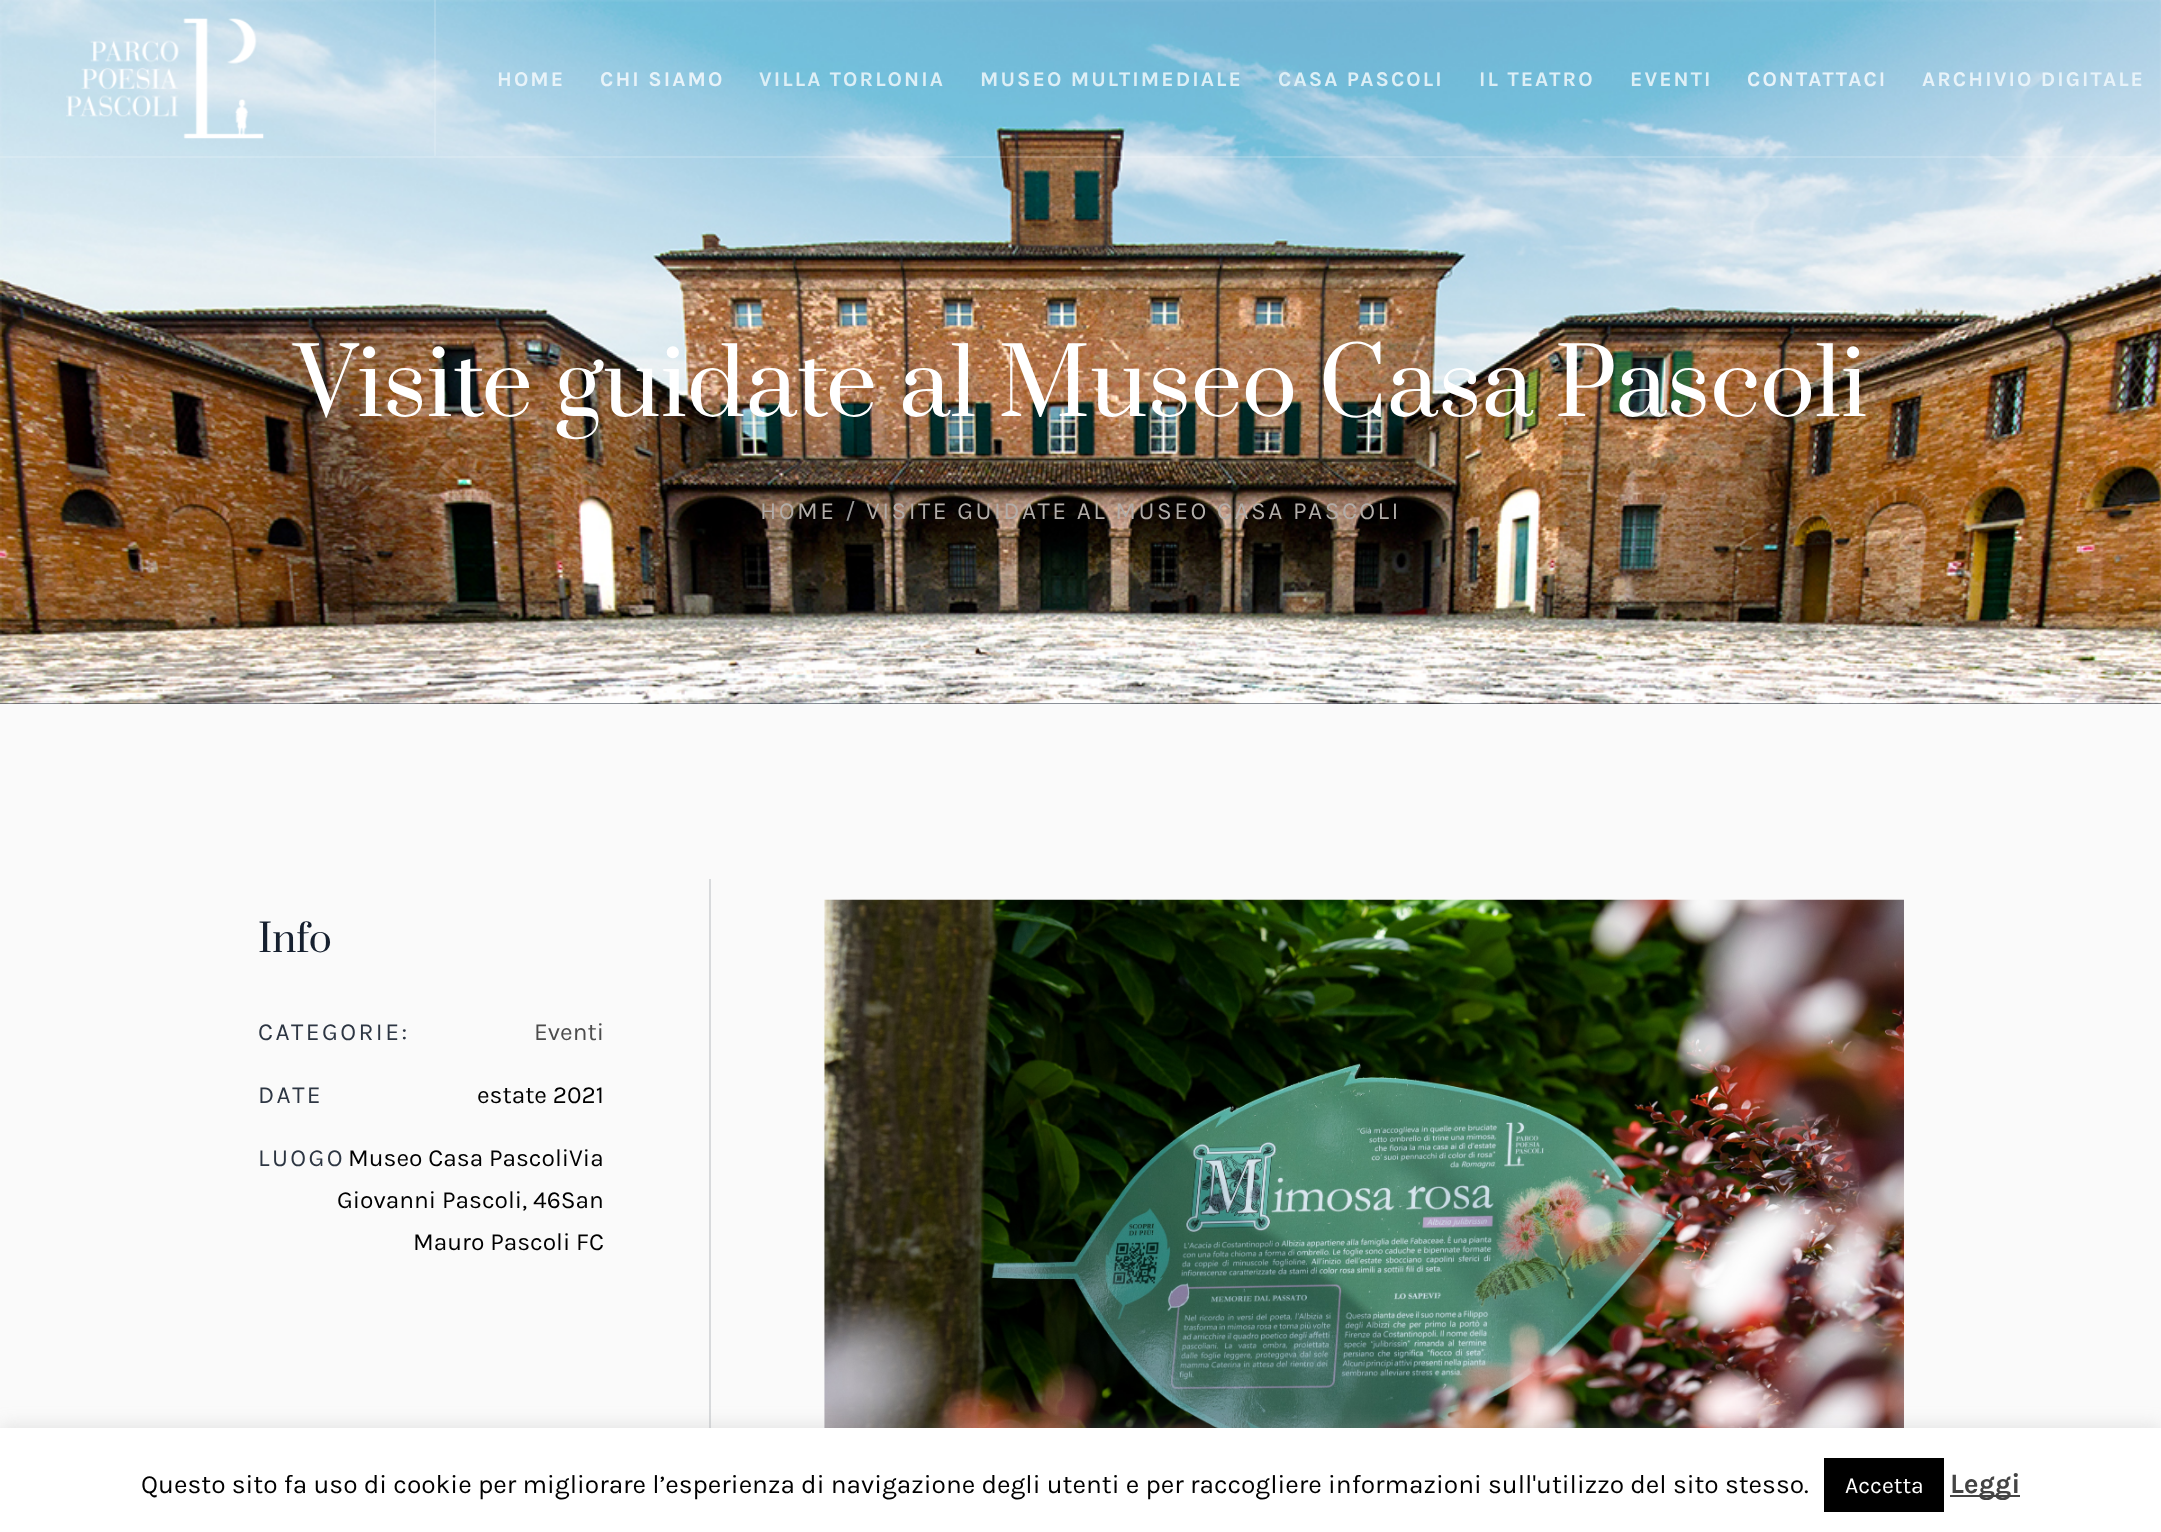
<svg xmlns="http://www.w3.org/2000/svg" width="2161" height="1532">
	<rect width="100%" height="100%" fill="#FAFAFA" />
	<rect x="0" y="703" width="2161" height="1" fill="#16202F" />
	<image x="0" y="0" width="2161" height="704" href="assets/img2.png" />
	<rect x="0" y="156" width="2161" height="2" fill="#FFFFFF" fill-opacity="0.17" />
	<image x="66" y="18" width="198" height="121" href="assets/img1.png" />
	<rect x="434" y="0" width="2" height="156" fill="#FFFFFF" fill-opacity="0.17" />
	<g font-family="Karla" font-size="21" font-weight="700" letter-spacing="2.1" fill="#E8F3F9">
		<text x="497" y="86">HOME</text>
		<text x="600" y="86">CHI SIAMO</text>
	</g>
	<g font-family="Karla" font-size="21" font-weight="700" letter-spacing="2.1" fill="#DDEFF6">
		<text x="759" y="86">VILLA TORLONIA</text>
		<text x="980" y="86">MUSEO MULTIMEDIALE</text>
		<text x="1278" y="86">CASA PASCOLI</text>
		<text x="1479" y="86">IL TEATRO</text>
		<text x="1630" y="86">EVENTI</text>
	</g>
	<g font-family="Karla" font-size="21" font-weight="700" letter-spacing="2.1" fill="#E8F3F9">
		<text x="1747" y="86">CONTATTACI</text>
		<text x="1922" y="86">ARCHIVIO DIGITALE</text>
	</g>
	<text x="295" y="416" font-family="Prata" font-size="91" fill="#FFFFFF">Visite guidate al Museo Casa Pascoli</text>
	<text x="760" y="519" font-family="Karla" font-size="24.5" letter-spacing="2.45" fill="#B2ADA9">HOME</text>
	<text x="845" y="519" font-family="Karla" font-size="24.5" letter-spacing="2.45" fill="#9A9A9A">/</text>
	<text x="866" y="519" font-family="Karla" font-size="24.5" letter-spacing="2.45" fill="#B2ADA9">VISITE GUIDATE AL MUSEO CASA PASCOLI</text>
	<text x="258" y="952" font-family="Prata" font-size="38" fill="#16202F">Info</text>
	<text x="258" y="1040" font-family="Karla" font-size="24.5" letter-spacing="2.45" fill="#2D3643">CATEGORIE:</text>
	<text x="534" y="1040" font-family="Karla" font-size="24.5" fill="#4C4C4C">Eventi</text>
	<text x="258" y="1103" font-family="Karla" font-size="24.5" letter-spacing="2.45" fill="#2D3643">DATE</text>
	<text x="477" y="1103" font-family="Karla" font-size="24.5" fill="#000000">estate 2021</text>
	<text x="258" y="1166" font-family="Karla" font-size="24.5" letter-spacing="2.45" fill="#2D3643">LUOGO</text>
	<g font-family="Karla" font-size="24.5" fill="#000000">
		<text x="348" y="1166">Museo Casa PascoliVia</text>
		<text x="337" y="1208">Giovanni Pascoli, 46San</text>
		<text x="413" y="1250">Mauro Pascoli FC</text>
	</g>
	<rect x="709" y="879" width="2" height="549" fill="#D8DADC" />
	<image x="824" y="899" width="1080" height="529" href="assets/img3.png" />
	<rect x="0" y="1426" width="2161" height="105" fill="#ACABAB" fill-opacity="0.3" filter="blur(9px)" />
	<rect x="0" y="1428" width="2161" height="104" fill="#FFFFFF" />
	<text x="141" y="1493" font-family="Karla" font-size="26.25" fill="#000000">Questo sito fa uso di cookie per migliorare l’esperienza di navigazione degli utenti e per raccogliere informazioni sull'utilizzo del sito stesso.</text>
	<rect x="1824" y="1458" width="120" height="54" fill="#000000" />
	<text x="1845" y="1493" font-family="Karla" font-size="23" fill="#FFFFFF">Accetta</text>
	<rect x="1950" y="1495" width="70" height="2" fill="#444444" />
	<text x="1950" y="1493" font-family="Karla" font-size="28" font-weight="700" fill="#444444">Leggi</text>
</svg>
